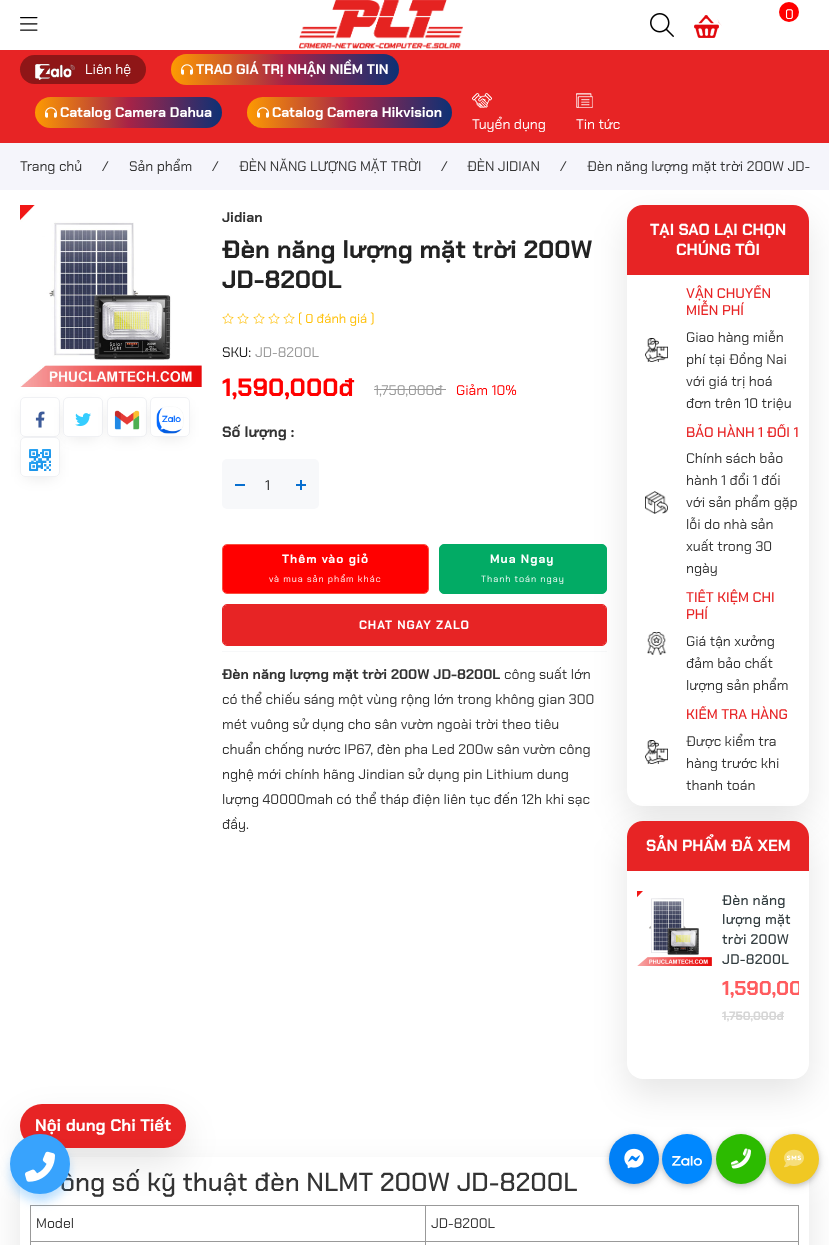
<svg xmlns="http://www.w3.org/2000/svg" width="829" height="1245">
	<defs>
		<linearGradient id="g1" gradientUnits="userSpaceOnUse" x1="171" y1="70" x2="627" y2="69"><stop offset="0" stop-color="#FD9A02" /><stop offset="0.25" stop-color="#A72347" /><stop offset="0.5" stop-color="#0D3175" /><stop offset="0.75" stop-color="#A72347" /><stop offset="1" stop-color="#FD9A02" /></linearGradient>
		<linearGradient id="g2" gradientUnits="userSpaceOnUse" x1="35" y1="113" x2="409" y2="112"><stop offset="0" stop-color="#FD9A02" /><stop offset="0.25" stop-color="#A72347" /><stop offset="0.5" stop-color="#0D3175" /><stop offset="0.75" stop-color="#A72347" /><stop offset="1" stop-color="#FD9A02" /></linearGradient>
		<linearGradient id="g3" gradientUnits="userSpaceOnUse" x1="247" y1="113" x2="657" y2="112"><stop offset="0" stop-color="#FD9A02" /><stop offset="0.25" stop-color="#A72347" /><stop offset="0.5" stop-color="#0D3175" /><stop offset="0.75" stop-color="#A72347" /><stop offset="1" stop-color="#FD9A02" /></linearGradient>
		<clipPath id="clip1"><path d="M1 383H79V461H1ZM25 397H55C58 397 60 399 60 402V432C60 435 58 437 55 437H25C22 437 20 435 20 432V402C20 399 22 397 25 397Z" clip-rule="evenodd" /></clipPath>
		<clipPath id="clip2"><path d="M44 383H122V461H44ZM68 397H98C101 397 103 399 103 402V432C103 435 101 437 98 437H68C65 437 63 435 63 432V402C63 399 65 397 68 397Z" clip-rule="evenodd" /></clipPath>
		<clipPath id="clip3"><path d="M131 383H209V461H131ZM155 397H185C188 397 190 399 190 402V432C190 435 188 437 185 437H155C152 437 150 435 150 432V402C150 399 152 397 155 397Z" clip-rule="evenodd" /></clipPath>
		<clipPath id="clip4"><path d="M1 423H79V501H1ZM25 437H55C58 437 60 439 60 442V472C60 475 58 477 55 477H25C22 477 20 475 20 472V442C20 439 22 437 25 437Z" clip-rule="evenodd" /></clipPath>
		<clipPath id="clip5"><rect x="637" y="285" width="162" height="129" /></clipPath>
		<clipPath id="clip6"><rect x="637" y="424" width="162" height="155" /></clipPath>
		<clipPath id="clip7"><rect x="637" y="589" width="162" height="107" /></clipPath>
		<clipPath id="clip8"><rect x="637" y="706" width="162" height="90" /></clipPath>
		<clipPath id="clip9"><rect x="637" y="891" width="162" height="168" /></clipPath>
		<clipPath id="clip10"><path d="M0 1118H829V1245H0ZM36 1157H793C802 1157 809 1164 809 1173V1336C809 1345 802 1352 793 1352H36C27 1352 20 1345 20 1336V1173C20 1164 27 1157 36 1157Z" clip-rule="evenodd" /></clipPath>
	</defs>
	<rect width="100%" height="100%" fill="#FFFFFF" />
	<image x="20" y="17" width="18" height="14" href="assets/img1.png" />
	<image x="299" y="0" width="164" height="49" href="assets/img2.png" />
	<image x="650" y="13" width="24" height="24" href="assets/img3.png" />
	<circle cx="789" cy="12" r="10" fill="#FF0000" />
	<text x="785" y="19" font-family="Chakra Petch" font-size="14" fill="#FFFFFF">0</text>
	<image x="694" y="15" width="28" height="23" href="assets/img4.png" />
	<rect x="0" y="50" width="829" height="93" fill="#E72425" />
	<rect x="20" y="55" width="126" height="29" rx="14.5" fill="#8F1617" />
	<image x="35" y="64" width="40" height="16" href="assets/img5.png" />
	<text x="85" y="74" font-family="Chakra Petch" font-size="14" fill="#FFFFFF">Liên hệ</text>
	<rect x="171" y="54" width="228" height="31" rx="15.5" fill="url(#g1)" />
	<image x="181" y="64" width="12" height="11" href="assets/img6.png" />
	<text x="196" y="74" font-family="Chakra Petch" font-size="14" font-weight="700" fill="#FFFFFF">TRAO GIÁ TRỊ NHẬN NIỀM TIN</text>
	<rect x="35" y="97" width="187" height="31" rx="15.5" fill="url(#g2)" />
	<image x="45" y="107" width="12" height="11" href="assets/img7.png" />
	<text x="60" y="117" font-family="Chakra Petch" font-size="14" font-weight="700" fill="#FFFFFF">Catalog Camera Dahua</text>
	<rect x="247" y="97" width="205" height="31" rx="15.5" fill="url(#g3)" />
	<image x="257" y="107" width="12" height="11" href="assets/img8.png" />
	<text x="272" y="117" font-family="Chakra Petch" font-size="14" font-weight="700" fill="#FFFFFF">Catalog Camera Hikvision</text>
	<image x="472" y="93" width="20" height="15" href="assets/img9.png" />
	<text x="472" y="129" font-family="Chakra Petch" font-size="14" fill="#FFFFFF">Tuyển dụng</text>
	<image x="576" y="93" width="17" height="15" href="assets/img10.png" />
	<text x="576" y="129" font-family="Chakra Petch" font-size="14" fill="#FFFFFF">Tin tức</text>
	<rect x="222" y="651" width="385" height="1" fill="#F7F8F9" />
	<rect x="627" y="220" width="182" height="601" rx="16" fill="#000000" fill-opacity="0.1" filter="blur(17.5px)" />
	<rect x="0" y="143" width="829" height="47" fill="#F5F5FB" />
	<g font-family="Chakra Petch" font-size="14" fill="#333333">
		<text x="20" y="171">Trang chủ</text>
		<text x="102" y="171">/</text>
		<text x="129" y="171">Sản phẩm</text>
		<text x="212" y="171">/</text>
		<text x="239" y="171">ĐÈN NĂNG LƯỢNG MẶT TRỜI</text>
		<text x="441" y="171">/</text>
		<text x="467" y="171">ĐÈN JIDIAN</text>
		<text x="560" y="171">/</text>
		<text x="587" y="171">Đèn năng lượng mặt trời 200W JD-</text>
	</g>
	<image x="20" y="205" width="182" height="182" href="assets/img11.png" />
	<g clip-path="url(#clip1)">
		<rect x="25" y="407" width="30" height="30" fill="#030303" fill-opacity="0.1" filter="blur(7.5px)" />
	</g>
	<rect x="20.5" y="397.5" width="39" height="39" rx="4.5" fill="none" stroke="#F0F1F4" />
	<image x="35" y="411" width="10" height="17" href="assets/img12.png" />
	<g clip-path="url(#clip2)">
		<rect x="68" y="407" width="30" height="30" fill="#000000" fill-opacity="0.1" filter="blur(7.5px)" />
	</g>
	<rect x="63.5" y="397.5" width="39" height="39" rx="4.5" fill="#FFFFFF" fill-opacity="0.99" stroke="#F0F1F4" />
	<image x="75" y="413" width="16" height="14" href="assets/img13.png" />
	<rect x="112" y="407" width="30" height="30" fill="#000000" fill-opacity="0.1" filter="blur(7.5px)" />
	<rect x="107.5" y="397.5" width="39" height="39" rx="4.5" fill="#FFFFFF" stroke="#F0F1F4" />
	<image x="114" y="410" width="26" height="20" href="assets/img14.png" />
	<g clip-path="url(#clip3)">
		<rect x="155" y="407" width="30" height="30" fill="#000000" fill-opacity="0.1" filter="blur(7.5px)" />
	</g>
	<rect x="150.5" y="397.5" width="39" height="39" rx="4.5" fill="#FFFFFF" fill-opacity="0.99" stroke="#F0F1F4" />
	<image x="156" y="406" width="28" height="28" href="assets/img15.png" />
	<g clip-path="url(#clip4)">
		<rect x="25" y="447" width="30" height="30" fill="#000000" fill-opacity="0.1" filter="blur(7.5px)" />
	</g>
	<rect x="20.5" y="437.5" width="39" height="39" rx="4.5" fill="#FFFFFF" fill-opacity="0.99" stroke="#F0F1F4" />
	<image x="29" y="449" width="22" height="22" href="assets/img16.png" />
	<text x="222" y="222" font-family="Chakra Petch" font-size="14" font-weight="700" fill="#333333">Jidian</text>
	<g font-family="Chakra Petch" font-size="25" font-weight="700" fill="#222222">
		<text x="222" y="258">Đèn năng lượng mặt trời 200W</text>
		<text x="222" y="288">JD-8200L</text>
	</g>
	<image x="222" y="313" width="12" height="11" href="assets/img17.png" />
	<image x="237" y="313" width="12" height="11" href="assets/img17.png" />
	<image x="253" y="313" width="12" height="11" href="assets/img17.png" />
	<image x="268" y="313" width="12" height="11" href="assets/img17.png" />
	<image x="283" y="313" width="12" height="11" href="assets/img17.png" />
	<text x="298" y="323" font-family="Chakra Petch" font-size="13" fill="#FFBE00">( 0 đánh giá )</text>
	<text x="222" y="357" font-family="Chakra Petch" font-size="14" fill="#191919">SKU:</text>
	<text x="255" y="357" font-family="Chakra Petch" font-size="14" fill="#999999">JD-8200L</text>
	<text x="222" y="396" font-family="Chakra Petch" font-size="25" font-weight="700" fill="#FF0000">1,590,000đ</text>
	<text x="374" y="395" font-family="Chakra Petch" font-size="14" fill="#999999">1,750,000đ</text>
	<rect x="374" y="389" width="72" height="1" fill="#999999" />
	<text x="456" y="395" font-family="Chakra Petch" font-size="14" fill="#FF0000">Giảm 10%</text>
	<text x="222" y="437" font-family="Chakra Petch" font-size="15" font-weight="700" fill="#333333">Số lượng :</text>
	<rect x="222" y="459" width="97" height="50" rx="5" fill="#F7F8FA" />
	<rect x="235" y="484" width="10" height="2" fill="#086FCF" />
	<text x="265" y="490" font-family="Chakra Petch" font-size="14" fill="#191919">1</text>
	<rect x="296" y="484" width="10" height="2" fill="#086FCF" />
	<rect x="300" y="480" width="2" height="10" fill="#086FCF" />
	<rect x="222.5" y="544.5" width="206" height="49" rx="4.5" fill="none" stroke="#F94E3F" />
	<rect x="223" y="545" width="205" height="48" rx="4" fill="#FF0000" />
	<text x="282" y="563" font-family="Chakra Petch" font-size="12" font-weight="700" letter-spacing="1" fill="#FFFFFF">Thêm vào giỏ</text>
	<text x="269" y="582" font-family="Chakra Petch" font-size="9" letter-spacing="1" fill="#FFFFFF">và mua sản phẩm khác</text>
	<rect x="439.5" y="544.5" width="167" height="49" rx="4.5" fill="#02AB65" stroke="#02AB65" />
	<text x="490" y="563" font-family="Chakra Petch" font-size="12" font-weight="700" letter-spacing="1" fill="#FFFFFF">Mua Ngay</text>
	<text x="481" y="582" font-family="Chakra Petch" font-size="9" letter-spacing="1" fill="#FFFFFF">Thanh toán ngay</text>
	<rect x="222.5" y="604.5" width="384" height="41" rx="4.5" fill="none" stroke="#E72425" />
	<rect x="223" y="605" width="383" height="40" rx="4" fill="#E72425" />
	<text x="359" y="629" font-family="Chakra Petch" font-size="12" font-weight="700" letter-spacing="1" fill="#FFFFFF">CHAT NGAY ZALO</text>
	<text x="222" y="679" font-family="Chakra Petch" font-size="14" font-weight="700" fill="#333333">Đèn năng lượng mặt trời 200W JD-8200L</text>
	<g font-family="Chakra Petch" font-size="14" fill="#333333">
		<text x="504" y="679">công suất lớn</text>
		<text x="222" y="704">có thể chiếu sáng một vùng rộng lớn trong không gian 300</text>
		<text x="222" y="729">mét vuông sử dụng cho sân vườn ngoài trời theo tiêu</text>
		<text x="222" y="754">chuẩn chống nước IP67, đèn pha Led 200w sân vườn công</text>
		<text x="222" y="779">nghệ mới chính hãng Jindian sử dụng pin Lithium dung</text>
		<text x="222" y="804">lượng 40000mah có thể tháp điện liên tục đến 12h khi sạc</text>
		<text x="222" y="829">đầy.</text>
	</g>
	<rect x="627" y="205" width="182" height="601" rx="16" fill="#FFFFFF" />
	<path d="M643 205H793C802 205 809 212 809 221V275H627V221C627 212 634 205 643 205Z" fill="#E72425" />
	<g font-family="Chakra Petch" font-size="16" font-weight="700" fill="#FFFFFF">
		<text x="650" y="235">TẠI SAO LẠI CHỌN</text>
		<text x="676" y="255">CHÚNG TÔI</text>
	</g>
	<image x="645" y="338" width="23" height="24" href="assets/img18.png" />
	<g clip-path="url(#clip5)">
		<text x="686" y="298" font-family="Chakra Petch" font-size="14" font-weight="500" fill="#E72425">VẬN CHUYỂN</text>
	</g>
	<text x="686" y="315" font-family="Chakra Petch" font-size="14" font-weight="500" fill="#E72425">MIỄN PHÍ</text>
	<g font-family="Chakra Petch" font-size="14" fill="#333333">
		<text x="686" y="342">Giao hàng miễn</text>
		<text x="686" y="364">phí tại Đồng Nai</text>
		<text x="686" y="386">với giá trị hoá</text>
		<text x="686" y="408">đơn trên 10 triệu</text>
	</g>
	<image x="645" y="491" width="23" height="23" href="assets/img19.png" />
	<g clip-path="url(#clip6)">
		<text x="686" y="437" font-family="Chakra Petch" font-size="14" font-weight="500" fill="#E72425">BẢO HÀNH 1 ĐỔI 1</text>
	</g>
	<g font-family="Chakra Petch" font-size="14" fill="#333333">
		<text x="686" y="463">Chính sách bảo</text>
		<text x="686" y="485">hành 1 đổi 1 đối</text>
		<text x="686" y="507">với sản phẩm gặp</text>
		<text x="686" y="529">lỗi do nhà sản</text>
		<text x="686" y="551">xuất trong 30</text>
		<text x="686" y="573">ngày</text>
	</g>
	<image x="647" y="632" width="20" height="23" href="assets/img20.png" />
	<g clip-path="url(#clip7)">
		<text x="686" y="602" font-family="Chakra Petch" font-size="14" font-weight="500" fill="#E72425">TIẾT KIỆM CHI</text>
	</g>
	<text x="686" y="619" font-family="Chakra Petch" font-size="14" font-weight="500" fill="#E72425">PHÍ</text>
	<g font-family="Chakra Petch" font-size="14" fill="#333333">
		<text x="686" y="646">Giá tận xưởng</text>
		<text x="686" y="668">đảm bảo chất</text>
		<text x="686" y="690">lượng sản phẩm</text>
	</g>
	<image x="645" y="740" width="23" height="24" href="assets/img18.png" />
	<g clip-path="url(#clip8)">
		<text x="686" y="719" font-family="Chakra Petch" font-size="14" font-weight="500" fill="#E72425">KIỂM TRA HÀNG</text>
	</g>
	<g font-family="Chakra Petch" font-size="14" fill="#333333">
		<text x="686" y="746">Được kiểm tra</text>
		<text x="686" y="768">hàng trước khi</text>
	</g>
	<rect x="627" y="836" width="182" height="258" rx="16" fill="#000000" fill-opacity="0.1" filter="blur(17.5px)" />
	<text x="686" y="790" font-family="Chakra Petch" font-size="14" fill="#333333">thanh toán</text>
	<rect x="627" y="821" width="182" height="258" rx="16" fill="#FFFFFF" />
	<path d="M643 821H793C802 821 809 828 809 837V871H627V837C627 828 634 821 643 821Z" fill="#E72425" />
	<text x="646" y="851" font-family="Chakra Petch" font-size="16" font-weight="700" fill="#FFFFFF">SẢN PHẨM ĐÃ XEM</text>
	<image x="637" y="891" width="75" height="75" href="assets/img21.png" />
	<g font-family="Chakra Petch" font-size="14" font-weight="500" letter-spacing="0.25" fill="#323C3F">
		<text x="722" y="905">Đèn năng</text>
		<text x="722" y="924">lượng mặt</text>
		<text x="722" y="944">trời 200W</text>
		<text x="722" y="964">JD-8200L</text>
	</g>
	<g clip-path="url(#clip9)">
		<text x="722" y="995" font-family="Chakra Petch" font-size="20" font-weight="700" fill="#FF5C5F">1,590,00</text>
	</g>
	<text x="722" y="1020" font-family="Chakra Petch" font-size="12" font-weight="700" fill="#D6D6D6">1,750,000đ</text>
	<rect x="722" y="1016" width="62" height="1" fill="#D6D6D6" />
	<rect x="20" y="1119" width="166" height="44" rx="22" fill="#000000" fill-opacity="0.1" filter="blur(17.5px)" />
	<rect x="20" y="1104" width="166" height="44" rx="22" fill="#E72425" />
	<text x="35" y="1131" font-family="Chakra Petch" font-size="16.75" font-weight="700" fill="#FFFFFF">Nội dung Chi Tiết</text>
	<g clip-path="url(#clip10)">
		<rect x="20" y="1172" width="789" height="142" rx="16" fill="#000000" fill-opacity="0.1" filter="blur(17.5px)" />
	</g>
	<text x="60" y="1191" font-family="Chakra Petch" font-size="26" font-weight="500" fill="#333333">ông số kỹ thuật đèn NLMT 200W JD-8200L</text>
	<rect x="425" y="1205" width="374" height="1" fill="#999999" />
	<rect x="425" y="1241" width="374" height="1" fill="#999999" />
	<rect x="425" y="1241" width="1" height="4" fill="#999999" />
	<rect x="30" y="1241" width="396" height="1" fill="#999999" />
	<rect x="425" y="1205" width="1" height="37" fill="#999999" />
	<rect x="30" y="1205" width="396" height="1" fill="#999999" />
	<rect x="30" y="1241" width="1" height="4" fill="#999999" />
	<rect x="30" y="1205" width="1" height="37" fill="#999999" />
	<text x="36" y="1228" font-family="Chakra Petch" font-size="14" fill="#333333">Model</text>
	<rect x="798" y="1241" width="1" height="4" fill="#999999" />
	<rect x="798" y="1205" width="1" height="37" fill="#999999" />
	<text x="431" y="1228" font-family="Chakra Petch" font-size="14" fill="#333333">JD-8200L</text>
	<rect x="10" y="1142" width="60" height="60" rx="30" fill="#38A3FD" fill-opacity="0.3" filter="blur(5px)" />
	<rect x="40" y="1147" width="4" height="50" rx="4" fill="#38A3FD" fill-opacity="0.3" filter="blur(5px)" />
	<circle cx="40" cy="1164" r="29" fill="#38A3FD" stroke="#38A3FD" stroke-width="2" />
	<image x="25" y="1151" width="30" height="31" href="assets/img22.png" />
	<rect x="609" y="1136" width="50" height="50" rx="25" fill="#000000" fill-opacity="0.12" filter="blur(5px)" />
	<rect x="609" y="1136" width="50" height="50" rx="25" fill="#000000" fill-opacity="0.16" filter="blur(2.5px)" />
	<circle cx="634" cy="1159" r="25" fill="#0080F7" />
	<image x="624" y="1148" width="20" height="21" href="assets/img23.png" />
	<rect x="662" y="1136" width="50" height="50" rx="25" fill="#000000" fill-opacity="0.12" filter="blur(5px)" />
	<rect x="662" y="1136" width="50" height="50" rx="25" fill="#000000" fill-opacity="0.16" filter="blur(2.5px)" />
	<circle cx="687" cy="1159" r="25" fill="#0088FF" />
	<rect x="716" y="1136" width="50" height="50" rx="25" fill="#000000" fill-opacity="0.12" filter="blur(5px)" />
	<image x="672" y="1156" width="30" height="10" href="assets/img24.png" />
	<rect x="716" y="1136" width="50" height="50" rx="25" fill="#000000" fill-opacity="0.16" filter="blur(2.5px)" />
	<circle cx="741" cy="1159" r="25" fill="#2CBB00" />
	<image x="731" y="1148" width="20" height="21" href="assets/img25.png" />
	<image x="731" y="1148" width="18" height="18" href="assets/img26.png" />
	<rect x="769" y="1136" width="50" height="50" rx="25" fill="#000000" fill-opacity="0.12" filter="blur(5px)" />
	<rect x="769" y="1136" width="50" height="50" rx="25" fill="#000000" fill-opacity="0.16" filter="blur(2.5px)" />
	<circle cx="794" cy="1159" r="25" fill="#F0C823" />
	<image x="786" y="1155" width="16" height="6" href="assets/img28.png" />
	<image x="784" y="1149" width="20" height="19" href="assets/img27.png" />
</svg>
